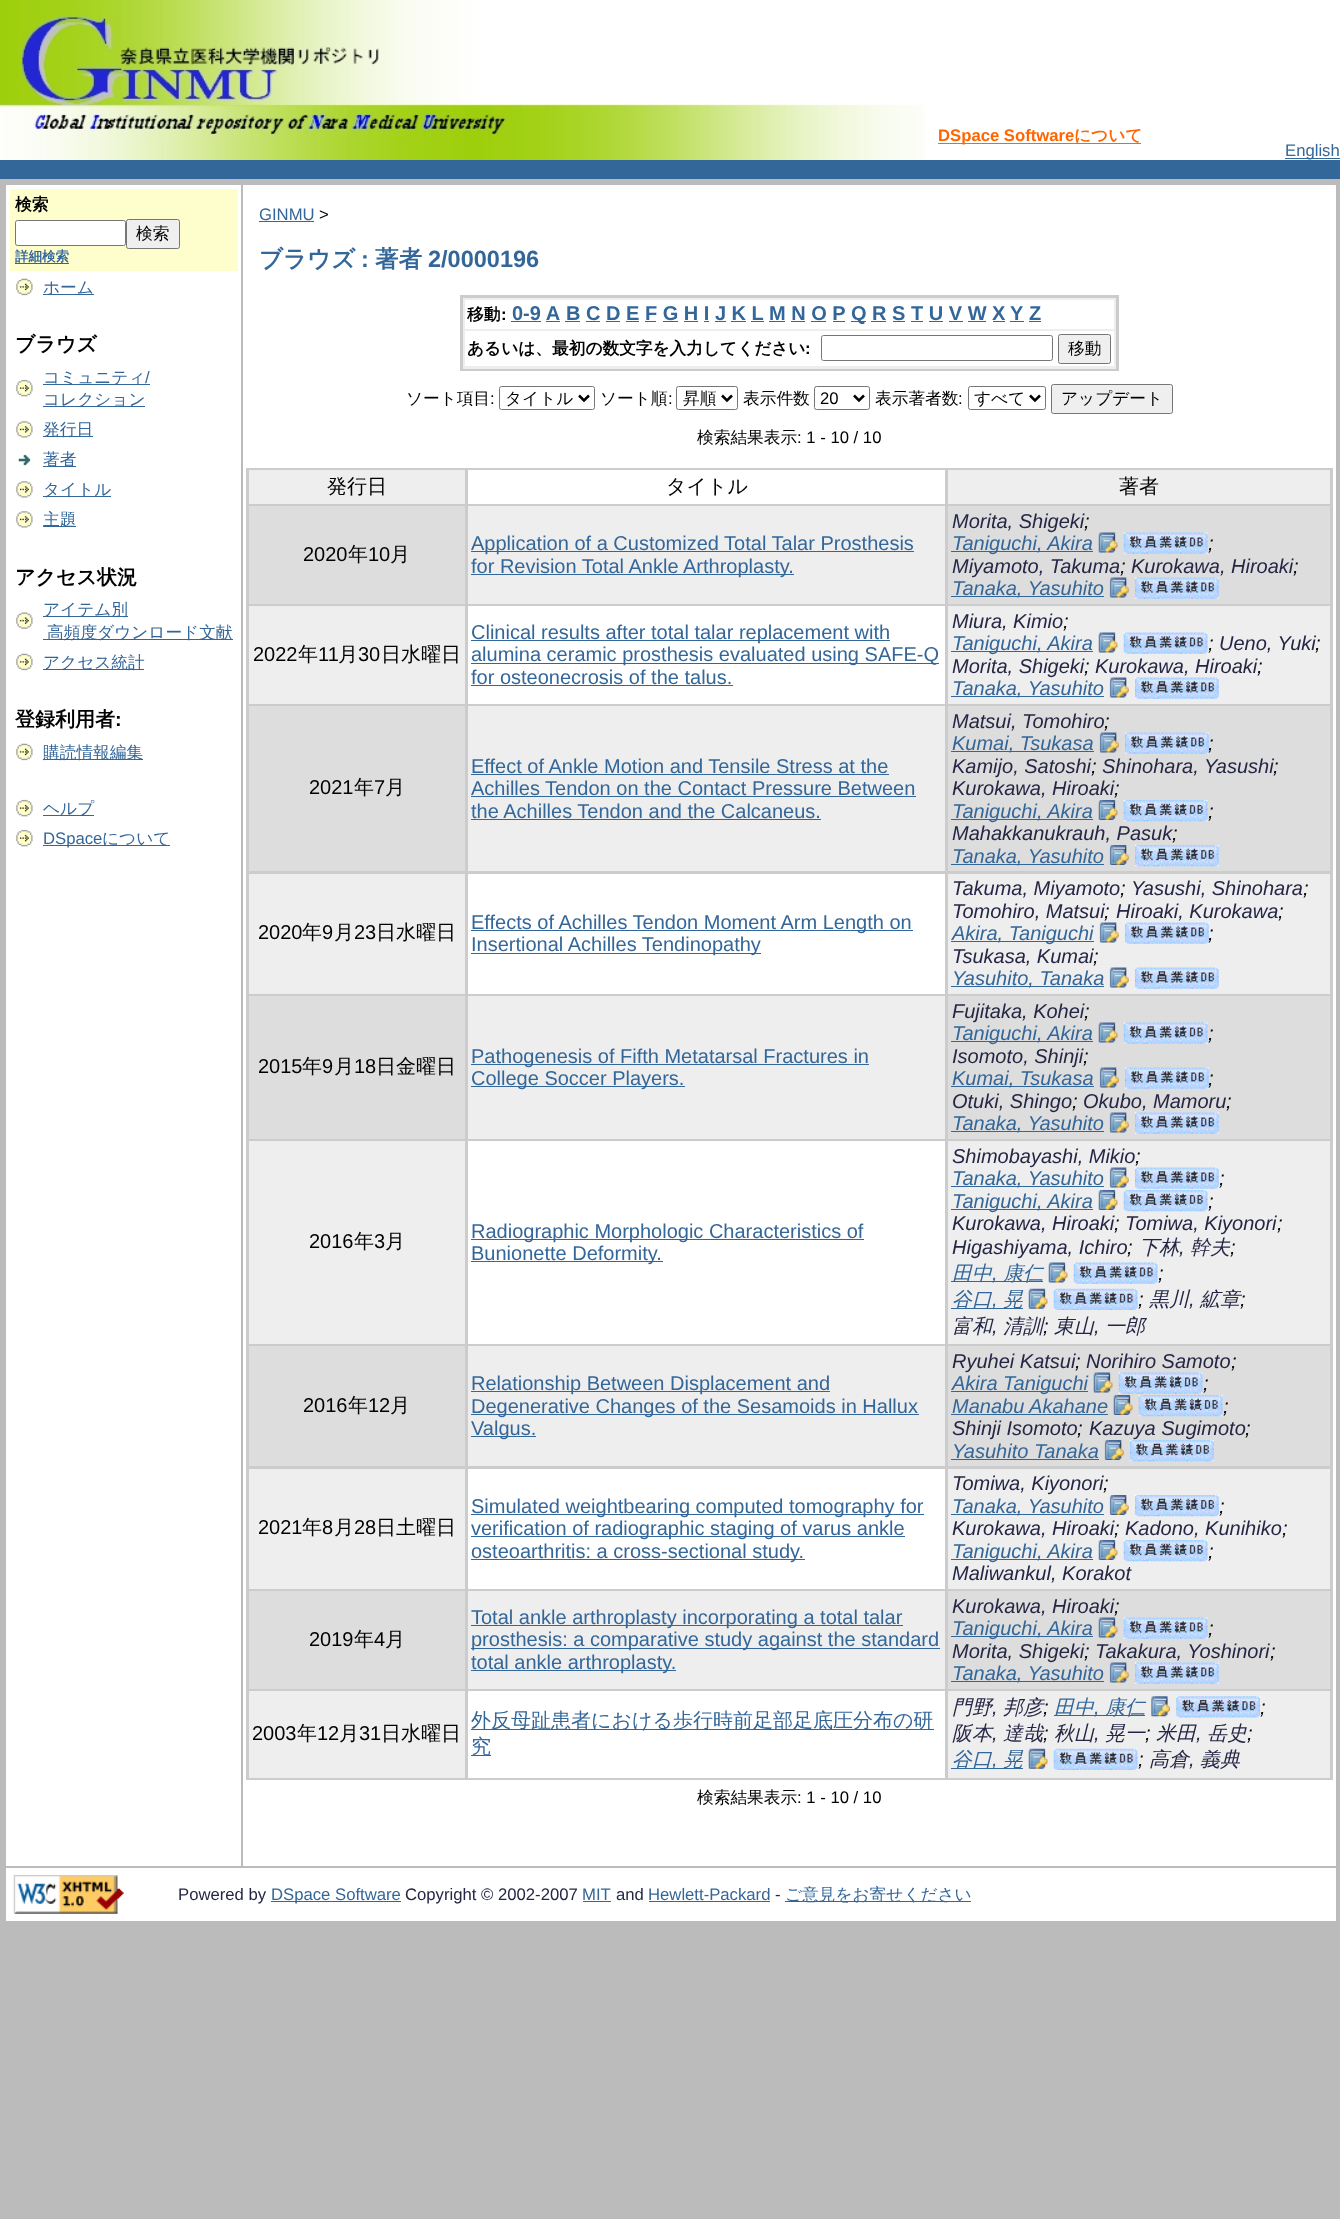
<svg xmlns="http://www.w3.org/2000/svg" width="1340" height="2219">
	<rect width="100%" height="100%" fill="#BBBBBB" />
	<rect x="925" y="0" width="415" height="160" fill="#FFFFFF" />
	<image x="0" y="0" width="925" height="160" href="assets/img1.png" />
	<rect x="938" y="143" width="203" height="1" fill="#FF6600" />
	<text x="938" y="141" font-family="Liberation Sans" font-size="16.7" font-weight="700" fill="#FF6600">DSpace Software</text>
	<text x="1074" y="141" font-family="WenQuanYi Zen Hei" font-size="16.7" font-weight="700" fill="#FF6600">について</text>
	<rect x="1285" y="158" width="55" height="1" fill="#336699" />
	<text x="1285" y="156" font-family="Liberation Sans" font-size="16.7" fill="#336699">English</text>
	<rect x="0" y="160" width="1340" height="19" fill="#336699" />
	<rect x="6" y="185" width="235" height="1681" fill="#FFFFFF" />
	<rect x="10" y="189" width="228" height="82" fill="#FEFECD" />
	<text x="15" y="210" font-family="WenQuanYi Zen Hei" font-size="16.7" font-weight="700" fill="#000000">検索</text>
	<rect x="15.5" y="220.5" width="110" height="25" rx="2" fill="#FFFFFF" stroke="#767676" />
	<rect x="126.5" y="219.5" width="53" height="29" rx="2" fill="#EFEFEF" stroke="#767676" />
	<text x="136" y="239" font-family="WenQuanYi Zen Hei" font-size="16.7" font-weight="500" fill="#000000">検索</text>
	<text x="15" y="261" font-family="WenQuanYi Zen Hei" font-size="13.5" font-weight="700" fill="#336699">詳細検索</text>
	<rect x="15" y="263" width="54" height="1" fill="#336699" />
	<image x="16" y="278" width="17" height="18" href="assets/img2.png" />
	<rect x="43" y="294" width="51" height="1" fill="#336699" />
	<text x="43" y="293" font-family="WenQuanYi Zen Hei" font-size="16.7" font-weight="500" fill="#336699">ホーム</text>
	<text x="15" y="351" font-family="WenQuanYi Zen Hei" font-size="20" font-weight="700" fill="#000000">ブラウズ</text>
	<image x="16" y="379" width="17" height="18" href="assets/img3.png" />
	<rect x="43" y="384" width="107" height="1" fill="#336699" />
	<text x="43" y="383" font-family="WenQuanYi Zen Hei" font-size="16.7" font-weight="500" fill="#336699">コミュニティ</text>
	<text x="145" y="383" font-family="Liberation Sans" font-size="16.7" fill="#336699">/</text>
	<rect x="43" y="406" width="102" height="1" fill="#336699" />
	<text x="43" y="405" font-family="WenQuanYi Zen Hei" font-size="16.7" font-weight="500" fill="#336699">コレクション</text>
	<image x="16" y="421" width="17" height="17" href="assets/img4.png" />
	<rect x="43" y="436" width="50" height="1" fill="#336699" />
	<text x="43" y="435" font-family="WenQuanYi Zen Hei" font-size="16.7" font-weight="500" fill="#336699">発行日</text>
	<image x="18" y="454" width="13" height="12" href="assets/img5.png" />
	<rect x="43" y="466" width="33" height="1" fill="#336699" />
	<text x="43" y="465" font-family="WenQuanYi Zen Hei" font-size="16.7" font-weight="500" fill="#336699">著者</text>
	<image x="16" y="481" width="17" height="17" href="assets/img4.png" />
	<rect x="43" y="496" width="68" height="1" fill="#336699" />
	<text x="43" y="495" font-family="WenQuanYi Zen Hei" font-size="16.7" font-weight="500" fill="#336699">タイトル</text>
	<image x="16" y="511" width="17" height="17" href="assets/img4.png" />
	<rect x="43" y="526" width="33" height="1" fill="#336699" />
	<text x="43" y="525" font-family="WenQuanYi Zen Hei" font-size="16.7" font-weight="500" fill="#336699">主題</text>
	<text x="15" y="584" font-family="WenQuanYi Zen Hei" font-size="20" font-weight="700" fill="#000000">アクセス状況</text>
	<image x="16" y="612" width="17" height="17" href="assets/img6.png" />
	<rect x="43" y="616" width="85" height="1" fill="#336699" />
	<text x="43" y="615" font-family="WenQuanYi Zen Hei" font-size="16.7" font-weight="500" fill="#336699">アイテム別</text>
	<rect x="43" y="639" width="190" height="1" fill="#336699" />
	<text x="47" y="638" font-family="WenQuanYi Zen Hei" font-size="16.7" font-weight="500" fill="#336699">高頻度ダウンロード文献</text>
	<image x="16" y="653" width="17" height="18" href="assets/img2.png" />
	<rect x="43" y="669" width="101" height="1" fill="#336699" />
	<text x="43" y="668" font-family="WenQuanYi Zen Hei" font-size="16.7" font-weight="500" fill="#336699">アクセス統計</text>
	<text x="15" y="726" font-family="WenQuanYi Zen Hei" font-size="20" font-weight="700" fill="#000000">登録利用者</text>
	<text x="115" y="726" font-family="Liberation Sans" font-size="20" font-weight="700" fill="#000000">:</text>
	<image x="16" y="743" width="17" height="18" href="assets/img2.png" />
	<rect x="43" y="759" width="100" height="1" fill="#336699" />
	<text x="43" y="758" font-family="WenQuanYi Zen Hei" font-size="16.7" font-weight="500" fill="#336699">購読情報編集</text>
	<image x="16" y="799" width="17" height="18" href="assets/img3.png" />
	<rect x="43" y="815" width="51" height="1" fill="#336699" />
	<text x="43" y="814" font-family="WenQuanYi Zen Hei" font-size="16.7" font-weight="500" fill="#336699">ヘルプ</text>
	<image x="16" y="829" width="17" height="18" href="assets/img3.png" />
	<rect x="43" y="845" width="127" height="1" fill="#336699" />
	<text x="43" y="844" font-family="Liberation Sans" font-size="16.7" fill="#336699">DSpace</text>
	<text x="102" y="844" font-family="WenQuanYi Zen Hei" font-size="16.7" font-weight="500" fill="#336699">について</text>
	<rect x="243" y="185" width="1093" height="1681" fill="#FFFFFF" />
	<text x="259" y="220" font-family="Liberation Sans" font-size="16.7" fill="#336699">GINMU</text>
	<rect x="259" y="221" width="55" height="1" fill="#336699" />
	<text x="319" y="220" font-family="Liberation Sans" font-size="16.7" fill="#000000">&gt;</text>
	<text x="259" y="267" font-family="WenQuanYi Zen Hei" font-size="23.5" font-weight="700" fill="#336699">ブラウズ</text>
	<text x="361" y="267" font-family="Liberation Sans" font-size="23.5" font-weight="700" fill="#336699">:</text>
	<text x="375" y="267" font-family="WenQuanYi Zen Hei" font-size="23.5" font-weight="700" fill="#336699">著者</text>
	<text x="428" y="267" font-family="Liberation Sans" font-size="23.5" font-weight="700" fill="#336699">2/0000196</text>
	<rect x="460" y="295" width="659" height="76" fill="#CCCCCC" />
	<rect x="463" y="298" width="653" height="71" fill="#EEEEEE" />
	<rect x="465" y="300" width="649" height="29" fill="#FFFFFF" />
	<text x="467" y="320" font-family="WenQuanYi Zen Hei" font-size="16.7" font-weight="700" fill="#000000">移動</text>
	<text x="501" y="320" font-family="Liberation Sans" font-size="16.7" font-weight="700" fill="#000000">:</text>
	<text x="512" y="320" font-family="Liberation Sans" font-size="20" font-weight="700" fill="#336699">0-9 A</text>
	<rect x="511" y="321" width="30" height="1" fill="#336699" />
	<text x="566" y="320" font-family="Liberation Sans" font-size="20" font-weight="700" fill="#336699">B C D E F G H I J K L</text>
	<rect x="565" y="321" width="15" height="1" fill="#336699" />
	<text x="769" y="320" font-family="Liberation Sans" font-size="20" font-weight="700" fill="#336699">M N O P</text>
	<rect x="769" y="321" width="16" height="1" fill="#336699" />
	<rect x="851" y="321" width="15" height="1" fill="#336699" />
	<g font-family="Liberation Sans" font-size="20" font-weight="700" fill="#336699">
		<text x="851" y="320">Q R S T U V W X</text>
		<text x="1010" y="320">Y</text>
	</g>
	<rect x="1010" y="321" width="14" height="1" fill="#336699" />
	<text x="1029" y="320" font-family="Liberation Sans" font-size="20" font-weight="700" fill="#336699">Z</text>
	<rect x="1029" y="321" width="12" height="1" fill="#336699" />
	<rect x="546" y="321" width="14" height="1" fill="#336699" />
	<rect x="586" y="321" width="14" height="1" fill="#336699" />
	<rect x="606" y="321" width="14" height="1" fill="#336699" />
	<rect x="626" y="321" width="13" height="1" fill="#336699" />
	<rect x="645" y="321" width="11" height="1" fill="#336699" />
	<rect x="663" y="321" width="15" height="1" fill="#336699" />
	<rect x="684" y="321" width="14" height="1" fill="#336699" />
	<rect x="704" y="321" width="5" height="1" fill="#336699" />
	<rect x="715" y="321" width="11" height="1" fill="#336699" />
	<rect x="731" y="321" width="15" height="1" fill="#336699" />
	<rect x="751" y="321" width="13" height="1" fill="#336699" />
	<rect x="791" y="321" width="14" height="1" fill="#336699" />
	<rect x="811" y="321" width="15" height="1" fill="#336699" />
	<rect x="833" y="321" width="12" height="1" fill="#336699" />
	<rect x="871" y="321" width="15" height="1" fill="#336699" />
	<rect x="893" y="321" width="12" height="1" fill="#336699" />
	<rect x="911" y="321" width="12" height="1" fill="#336699" />
	<rect x="929" y="321" width="14" height="1" fill="#336699" />
	<rect x="949" y="321" width="14" height="1" fill="#336699" />
	<rect x="968" y="321" width="18" height="1" fill="#336699" />
	<rect x="993" y="321" width="12" height="1" fill="#336699" />
	<rect x="465" y="331" width="649" height="35" fill="#FFFFFF" />
	<text x="467" y="354" font-family="WenQuanYi Zen Hei" font-size="16.7" font-weight="700" fill="#000000">あるいは、最初の数文字を入力してください</text>
	<text x="805" y="354" font-family="Liberation Sans" font-size="16.7" font-weight="700" fill="#000000">:</text>
	<rect x="821.5" y="335.5" width="231" height="25" rx="2" fill="none" stroke="#767676" />
	<rect x="1058.5" y="334.5" width="52" height="29" rx="2" fill="#EFEFEF" stroke="#767676" />
	<g font-family="WenQuanYi Zen Hei" font-size="16.7" font-weight="500" fill="#000000">
		<text x="1068" y="354">移動</text>
		<text x="406" y="404">ソート項目</text>
	</g>
	<text x="490" y="404" font-family="Liberation Sans" font-size="16.7" fill="#000000">:</text>
	<rect x="499.5" y="386.5" width="95" height="23" rx="2" fill="none" stroke="#767676" />
	<path d="M579 395.5L584 400.5L589 395.5" fill="none" stroke="#000000" stroke-width="2.5" />
	<g font-family="WenQuanYi Zen Hei" font-size="16.7" font-weight="500" fill="#000000">
		<text x="505" y="404">タイトル</text>
		<text x="600" y="404">ソート順</text>
	</g>
	<text x="668" y="404" font-family="Liberation Sans" font-size="16.7" fill="#000000">:</text>
	<rect x="676.5" y="386.5" width="61" height="23" rx="2" fill="none" stroke="#767676" />
	<path d="M722 395.5L727 400.5L732 395.5" fill="none" stroke="#000000" stroke-width="2.5" />
	<g font-family="WenQuanYi Zen Hei" font-size="16.7" font-weight="500" fill="#000000">
		<text x="683" y="404">昇順</text>
		<text x="743" y="404">表示件数</text>
	</g>
	<rect x="814.5" y="386.5" width="55" height="23" rx="2" fill="none" stroke="#767676" />
	<path d="M854 395.5L859 400.5L864 395.5" fill="none" stroke="#000000" stroke-width="2.5" />
	<text x="820" y="404" font-family="Liberation Sans" font-size="16.7" fill="#000000">20</text>
	<text x="875" y="404" font-family="WenQuanYi Zen Hei" font-size="16.7" font-weight="500" fill="#000000">表示著者数</text>
	<text x="958" y="404" font-family="Liberation Sans" font-size="16.7" fill="#000000">:</text>
	<rect x="968.5" y="386.5" width="77" height="23" rx="2" fill="none" stroke="#767676" />
	<path d="M1030 395.5L1035 400.5L1040 395.5" fill="none" stroke="#000000" stroke-width="2.5" />
	<text x="974" y="404" font-family="WenQuanYi Zen Hei" font-size="16.7" font-weight="500" fill="#000000">すべて</text>
	<rect x="1051.5" y="384.5" width="121" height="29" rx="2" fill="#EFEFEF" stroke="#767676" />
	<g font-family="WenQuanYi Zen Hei" font-size="16.7" font-weight="500" fill="#000000">
		<text x="1061" y="404">アップデート</text>
		<text x="697" y="443">検索結果表示</text>
	</g>
	<text x="797" y="443" font-family="Liberation Sans" font-size="16.7" fill="#000000">: 1 - 10 / 10</text>
	<rect x="246" y="468" width="1087" height="1312" fill="#CCCCCC" />
	<rect x="249" y="470" width="216" height="34" fill="#EEEEEE" />
	<text x="327" y="493" font-family="WenQuanYi Zen Hei" font-size="20" font-weight="500" fill="#000000">発行日</text>
	<rect x="468" y="470" width="477" height="34" fill="#FFFFFF" />
	<text x="666" y="493" font-family="WenQuanYi Zen Hei" font-size="20" font-weight="500" fill="#000000">タイトル</text>
	<rect x="948" y="470" width="382" height="34" fill="#EEEEEE" />
	<text x="1119" y="493" font-family="WenQuanYi Zen Hei" font-size="20" font-weight="500" fill="#000000">著者</text>
	<rect x="249" y="506" width="216" height="98" fill="#DDDDDD" />
	<text x="303" y="561" font-family="Liberation Sans" font-size="20" fill="#000000">2020</text>
	<text x="348" y="561" font-family="WenQuanYi Zen Hei" font-size="20" font-weight="500" fill="#000000">年</text>
	<text x="368" y="561" font-family="Liberation Sans" font-size="20" fill="#000000">10</text>
	<text x="390" y="561" font-family="WenQuanYi Zen Hei" font-size="20" font-weight="500" fill="#000000">月</text>
	<rect x="468" y="506" width="477" height="98" fill="#EEEEEE" />
	<rect x="471" y="551" width="443" height="1" fill="#336699" />
	<text x="471" y="550" font-family="Liberation Sans" font-size="20" fill="#336699">Application of a Customized Total Talar Prosthesis</text>
	<rect x="471" y="574" width="323" height="1" fill="#336699" />
	<text x="471" y="573" font-family="Liberation Sans" font-size="20" fill="#336699">for Revision Total Ankle Arthroplasty.</text>
	<rect x="948" y="506" width="382" height="98" fill="#DDDDDD" />
	<text x="952" y="528" font-family="Liberation Sans" font-size="20" font-style="italic" fill="#252645">Morita, Shigeki</text>
	<text x="1084" y="528" font-family="Liberation Sans" font-size="20" font-style="italic" fill="#000000">;</text>
	<rect x="951" y="551" width="142" height="1" fill="#336699" />
	<text x="952" y="550" font-family="Liberation Sans" font-size="20" font-style="italic" fill="#336699">Taniguchi, Akira</text>
	<image x="1098" y="532" width="20" height="21" href="assets/img7.png" />
	<image x="1123" y="532" width="85" height="22" href="assets/img8.png" />
	<text x="1208" y="550" font-family="Liberation Sans" font-size="20" font-style="italic" fill="#000000">;</text>
	<text x="952" y="573" font-family="Liberation Sans" font-size="20" font-style="italic" fill="#252645">Miyamoto, Takuma</text>
	<text x="1120" y="573" font-family="Liberation Sans" font-size="20" font-style="italic" fill="#000000">;</text>
	<text x="1131" y="573" font-family="Liberation Sans" font-size="20" font-style="italic" fill="#252645">Kurokawa, Hiroaki</text>
	<text x="1293" y="573" font-family="Liberation Sans" font-size="20" font-style="italic" fill="#000000">;</text>
	<rect x="951" y="596" width="153" height="1" fill="#336699" />
	<text x="952" y="595" font-family="Liberation Sans" font-size="20" font-style="italic" fill="#336699">Tanaka, Yasuhito</text>
	<image x="1109" y="577" width="20" height="21" href="assets/img9.png" />
	<image x="1135" y="577" width="84" height="22" href="assets/img10.png" />
	<rect x="249" y="606" width="216" height="98" fill="#EEEEEE" />
	<text x="253" y="661" font-family="Liberation Sans" font-size="20" fill="#000000">2022</text>
	<text x="298" y="661" font-family="WenQuanYi Zen Hei" font-size="20" font-weight="500" fill="#000000">年</text>
	<text x="318" y="661" font-family="Liberation Sans" font-size="20" fill="#000000">11</text>
	<text x="338" y="661" font-family="WenQuanYi Zen Hei" font-size="20" font-weight="500" fill="#000000">月</text>
	<text x="358" y="661" font-family="Liberation Sans" font-size="20" fill="#000000">30</text>
	<text x="381" y="661" font-family="WenQuanYi Zen Hei" font-size="20" font-weight="500" fill="#000000">日水曜日</text>
	<rect x="468" y="606" width="477" height="98" fill="#FFFFFF" />
	<rect x="471" y="640" width="419" height="1" fill="#336699" />
	<text x="471" y="639" font-family="Liberation Sans" font-size="20" fill="#336699">Clinical results after total talar replacement with</text>
	<rect x="471" y="663" width="468" height="1" fill="#336699" />
	<g font-family="Liberation Sans" font-size="20" fill="#336699">
		<text x="471" y="661">alumina ceramic prosthesis evaluated using SAFE-Q</text>
		<text x="471" y="684">for osteonecrosis of the talus.</text>
	</g>
	<rect x="471" y="685" width="262" height="1" fill="#336699" />
	<rect x="948" y="606" width="382" height="98" fill="#EEEEEE" />
	<text x="952" y="628" font-family="Liberation Sans" font-size="20" font-style="italic" fill="#252645">Miura, Kimio</text>
	<text x="1063" y="628" font-family="Liberation Sans" font-size="20" font-style="italic" fill="#000000">;</text>
	<rect x="951" y="651" width="142" height="1" fill="#336699" />
	<text x="952" y="650" font-family="Liberation Sans" font-size="20" font-style="italic" fill="#336699">Taniguchi, Akira</text>
	<image x="1098" y="632" width="20" height="21" href="assets/img11.png" />
	<image x="1123" y="632" width="85" height="22" href="assets/img12.png" />
	<text x="1208" y="650" font-family="Liberation Sans" font-size="20" font-style="italic" fill="#000000">;</text>
	<text x="1219" y="650" font-family="Liberation Sans" font-size="20" font-style="italic" fill="#252645">Ueno, Yuki</text>
	<text x="1315" y="650" font-family="Liberation Sans" font-size="20" font-style="italic" fill="#000000">;</text>
	<text x="952" y="673" font-family="Liberation Sans" font-size="20" font-style="italic" fill="#252645">Morita, Shigeki</text>
	<text x="1084" y="673" font-family="Liberation Sans" font-size="20" font-style="italic" fill="#000000">;</text>
	<text x="1095" y="673" font-family="Liberation Sans" font-size="20" font-style="italic" fill="#252645">Kurokawa, Hiroaki</text>
	<text x="1257" y="673" font-family="Liberation Sans" font-size="20" font-style="italic" fill="#000000">;</text>
	<rect x="951" y="696" width="153" height="1" fill="#336699" />
	<text x="952" y="695" font-family="Liberation Sans" font-size="20" font-style="italic" fill="#336699">Tanaka, Yasuhito</text>
	<image x="1109" y="677" width="20" height="21" href="assets/img13.png" />
	<image x="1135" y="677" width="84" height="22" href="assets/img14.png" />
	<rect x="249" y="706" width="216" height="165" fill="#DDDDDD" />
	<text x="309" y="794" font-family="Liberation Sans" font-size="20" fill="#000000">2021</text>
	<text x="354" y="794" font-family="WenQuanYi Zen Hei" font-size="20" font-weight="500" fill="#000000">年</text>
	<text x="374" y="794" font-family="Liberation Sans" font-size="20" fill="#000000">7</text>
	<text x="385" y="794" font-family="WenQuanYi Zen Hei" font-size="20" font-weight="500" fill="#000000">月</text>
	<rect x="468" y="706" width="477" height="165" fill="#EEEEEE" />
	<text x="471" y="773" font-family="Liberation Sans" font-size="20" fill="#336699">Effect of Ankle Motion and Tensile Stress at the</text>
	<rect x="471" y="774" width="418" height="1" fill="#336699" />
	<text x="471" y="795" font-family="Liberation Sans" font-size="20" fill="#336699">Achilles Tendon on the Contact Pressure Between</text>
	<rect x="471" y="796" width="445" height="1" fill="#336699" />
	<text x="471" y="818" font-family="Liberation Sans" font-size="20" fill="#336699">the Achilles Tendon and the Calcaneus.</text>
	<rect x="471" y="819" width="350" height="1" fill="#336699" />
	<rect x="948" y="706" width="382" height="165" fill="#DDDDDD" />
	<text x="952" y="728" font-family="Liberation Sans" font-size="20" font-style="italic" fill="#252645">Matsui, Tomohiro</text>
	<text x="1104" y="728" font-family="Liberation Sans" font-size="20" font-style="italic" fill="#000000">;</text>
	<rect x="951" y="751" width="143" height="1" fill="#336699" />
	<text x="952" y="750" font-family="Liberation Sans" font-size="20" font-style="italic" fill="#336699">Kumai, Tsukasa</text>
	<image x="1099" y="732" width="20" height="21" href="assets/img15.png" />
	<image x="1125" y="732" width="84" height="22" href="assets/img16.png" />
	<text x="1208" y="750" font-family="Liberation Sans" font-size="20" font-style="italic" fill="#000000">;</text>
	<text x="952" y="773" font-family="Liberation Sans" font-size="20" font-style="italic" fill="#252645">Kamijo, Satoshi</text>
	<text x="1091" y="773" font-family="Liberation Sans" font-size="20" font-style="italic" fill="#000000">;</text>
	<text x="1102" y="773" font-family="Liberation Sans" font-size="20" font-style="italic" fill="#252645">Shinohara, Yasushi</text>
	<text x="1273" y="773" font-family="Liberation Sans" font-size="20" font-style="italic" fill="#000000">;</text>
	<text x="952" y="795" font-family="Liberation Sans" font-size="20" font-style="italic" fill="#252645">Kurokawa, Hiroaki</text>
	<text x="1114" y="795" font-family="Liberation Sans" font-size="20" font-style="italic" fill="#000000">;</text>
	<rect x="951" y="819" width="142" height="1" fill="#336699" />
	<text x="952" y="818" font-family="Liberation Sans" font-size="20" font-style="italic" fill="#336699">Taniguchi, Akira</text>
	<image x="1098" y="800" width="20" height="20" href="assets/img17.png" />
	<image x="1123" y="800" width="85" height="22" href="assets/img18.png" />
	<text x="1208" y="818" font-family="Liberation Sans" font-size="20" font-style="italic" fill="#000000">;</text>
	<text x="952" y="840" font-family="Liberation Sans" font-size="20" font-style="italic" fill="#252645">Mahakkanukrauh, Pasuk</text>
	<text x="1172" y="840" font-family="Liberation Sans" font-size="20" font-style="italic" fill="#000000">;</text>
	<rect x="951" y="864" width="153" height="1" fill="#336699" />
	<text x="952" y="863" font-family="Liberation Sans" font-size="20" font-style="italic" fill="#336699">Tanaka, Yasuhito</text>
	<image x="1109" y="845" width="20" height="20" href="assets/img19.png" />
	<image x="1135" y="845" width="84" height="22" href="assets/img20.png" />
	<rect x="249" y="874" width="216" height="120" fill="#EEEEEE" />
	<text x="258" y="939" font-family="Liberation Sans" font-size="20" fill="#000000">2020</text>
	<text x="302" y="939" font-family="WenQuanYi Zen Hei" font-size="20" font-weight="500" fill="#000000">年</text>
	<text x="322" y="939" font-family="Liberation Sans" font-size="20" fill="#000000">9</text>
	<text x="334" y="939" font-family="WenQuanYi Zen Hei" font-size="20" font-weight="500" fill="#000000">月</text>
	<text x="354" y="939" font-family="Liberation Sans" font-size="20" fill="#000000">23</text>
	<text x="376" y="939" font-family="WenQuanYi Zen Hei" font-size="20" font-weight="500" fill="#000000">日水曜日</text>
	<rect x="468" y="874" width="477" height="120" fill="#FFFFFF" />
	<rect x="471" y="930" width="442" height="1" fill="#336699" />
	<text x="471" y="929" font-family="Liberation Sans" font-size="20" fill="#336699">Effects of Achilles Tendon Moment Arm Length on</text>
	<rect x="471" y="953" width="290" height="1" fill="#336699" />
	<text x="471" y="951" font-family="Liberation Sans" font-size="20" fill="#336699">Insertional Achilles Tendinopathy</text>
	<rect x="948" y="874" width="382" height="120" fill="#EEEEEE" />
	<text x="952" y="895" font-family="Liberation Sans" font-size="20" font-style="italic" fill="#252645">Takuma, Miyamoto</text>
	<text x="1120" y="895" font-family="Liberation Sans" font-size="20" font-style="italic" fill="#000000">;</text>
	<text x="1131" y="895" font-family="Liberation Sans" font-size="20" font-style="italic" fill="#252645">Yasushi, Shinohara</text>
	<text x="1303" y="895" font-family="Liberation Sans" font-size="20" font-style="italic" fill="#000000">;</text>
	<text x="952" y="918" font-family="Liberation Sans" font-size="20" font-style="italic" fill="#252645">Tomohiro, Matsui</text>
	<text x="1104" y="918" font-family="Liberation Sans" font-size="20" font-style="italic" fill="#000000">;</text>
	<text x="1116" y="918" font-family="Liberation Sans" font-size="20" font-style="italic" fill="#252645">Hiroaki, Kurokawa</text>
	<text x="1278" y="918" font-family="Liberation Sans" font-size="20" font-style="italic" fill="#000000">;</text>
	<rect x="951" y="941" width="143" height="1" fill="#336699" />
	<text x="952" y="940" font-family="Liberation Sans" font-size="20" font-style="italic" fill="#336699">Akira, Taniguchi</text>
	<image x="1099" y="922" width="20" height="21" href="assets/img13.png" />
	<image x="1125" y="922" width="84" height="22" href="assets/img14.png" />
	<text x="1208" y="940" font-family="Liberation Sans" font-size="20" font-style="italic" fill="#000000">;</text>
	<text x="952" y="963" font-family="Liberation Sans" font-size="20" font-style="italic" fill="#252645">Tsukasa, Kumai</text>
	<text x="1093" y="963" font-family="Liberation Sans" font-size="20" font-style="italic" fill="#000000">;</text>
	<rect x="951" y="986" width="153" height="1" fill="#336699" />
	<text x="952" y="985" font-family="Liberation Sans" font-size="20" font-style="italic" fill="#336699">Yasuhito, Tanaka</text>
	<image x="1109" y="967" width="20" height="21" href="assets/img13.png" />
	<image x="1135" y="967" width="84" height="22" href="assets/img14.png" />
	<rect x="249" y="996" width="216" height="143" fill="#DDDDDD" />
	<text x="258" y="1073" font-family="Liberation Sans" font-size="20" fill="#000000">2015</text>
	<text x="302" y="1073" font-family="WenQuanYi Zen Hei" font-size="20" font-weight="500" fill="#000000">年</text>
	<text x="322" y="1073" font-family="Liberation Sans" font-size="20" fill="#000000">9</text>
	<text x="334" y="1073" font-family="WenQuanYi Zen Hei" font-size="20" font-weight="500" fill="#000000">月</text>
	<text x="354" y="1073" font-family="Liberation Sans" font-size="20" fill="#000000">18</text>
	<text x="376" y="1073" font-family="WenQuanYi Zen Hei" font-size="20" font-weight="500" fill="#000000">日金曜日</text>
	<rect x="468" y="996" width="477" height="143" fill="#EEEEEE" />
	<rect x="471" y="1064" width="398" height="1" fill="#336699" />
	<text x="471" y="1063" font-family="Liberation Sans" font-size="20" fill="#336699">Pathogenesis of Fifth Metatarsal Fractures in</text>
	<rect x="471" y="1086" width="214" height="1" fill="#336699" />
	<text x="471" y="1085" font-family="Liberation Sans" font-size="20" fill="#336699">College Soccer Players.</text>
	<rect x="948" y="996" width="382" height="143" fill="#DDDDDD" />
	<text x="952" y="1018" font-family="Liberation Sans" font-size="20" font-style="italic" fill="#252645">Fujitaka, Kohei</text>
	<text x="1084" y="1018" font-family="Liberation Sans" font-size="20" font-style="italic" fill="#000000">;</text>
	<rect x="951" y="1041" width="142" height="1" fill="#336699" />
	<text x="952" y="1040" font-family="Liberation Sans" font-size="20" font-style="italic" fill="#336699">Taniguchi, Akira</text>
	<image x="1098" y="1022" width="20" height="21" href="assets/img21.png" />
	<image x="1123" y="1022" width="85" height="22" href="assets/img22.png" />
	<text x="1208" y="1040" font-family="Liberation Sans" font-size="20" font-style="italic" fill="#000000">;</text>
	<text x="952" y="1063" font-family="Liberation Sans" font-size="20" font-style="italic" fill="#252645">Isomoto, Shinji</text>
	<text x="1083" y="1063" font-family="Liberation Sans" font-size="20" font-style="italic" fill="#000000">;</text>
	<rect x="951" y="1086" width="143" height="1" fill="#336699" />
	<text x="952" y="1085" font-family="Liberation Sans" font-size="20" font-style="italic" fill="#336699">Kumai, Tsukasa</text>
	<image x="1099" y="1067" width="20" height="21" href="assets/img15.png" />
	<image x="1125" y="1067" width="84" height="22" href="assets/img16.png" />
	<text x="1208" y="1085" font-family="Liberation Sans" font-size="20" font-style="italic" fill="#000000">;</text>
	<text x="952" y="1108" font-family="Liberation Sans" font-size="20" font-style="italic" fill="#252645">Otuki, Shingo</text>
	<text x="1072" y="1108" font-family="Liberation Sans" font-size="20" font-style="italic" fill="#000000">;</text>
	<text x="1083" y="1108" font-family="Liberation Sans" font-size="20" font-style="italic" fill="#252645">Okubo, Mamoru</text>
	<text x="1226" y="1108" font-family="Liberation Sans" font-size="20" font-style="italic" fill="#000000">;</text>
	<rect x="951" y="1131" width="153" height="1" fill="#336699" />
	<text x="952" y="1130" font-family="Liberation Sans" font-size="20" font-style="italic" fill="#336699">Tanaka, Yasuhito</text>
	<image x="1109" y="1112" width="20" height="21" href="assets/img15.png" />
	<image x="1135" y="1112" width="84" height="22" href="assets/img16.png" />
	<rect x="249" y="1141" width="216" height="203" fill="#EEEEEE" />
	<text x="309" y="1248" font-family="Liberation Sans" font-size="20" fill="#000000">2016</text>
	<text x="354" y="1248" font-family="WenQuanYi Zen Hei" font-size="20" font-weight="500" fill="#000000">年</text>
	<text x="374" y="1248" font-family="Liberation Sans" font-size="20" fill="#000000">3</text>
	<text x="385" y="1248" font-family="WenQuanYi Zen Hei" font-size="20" font-weight="500" fill="#000000">月</text>
	<rect x="468" y="1141" width="477" height="203" fill="#FFFFFF" />
	<rect x="471" y="1239" width="393" height="1" fill="#336699" />
	<text x="471" y="1238" font-family="Liberation Sans" font-size="20" fill="#336699">Radiographic Morphologic Characteristics of</text>
	<rect x="471" y="1261" width="192" height="1" fill="#336699" />
	<text x="471" y="1260" font-family="Liberation Sans" font-size="20" fill="#336699">Bunionette Deformity.</text>
	<rect x="948" y="1141" width="382" height="203" fill="#EEEEEE" />
	<text x="952" y="1163" font-family="Liberation Sans" font-size="20" font-style="italic" fill="#252645">Shimobayashi, Mikio</text>
	<text x="1135" y="1163" font-family="Liberation Sans" font-size="20" font-style="italic" fill="#000000">;</text>
	<rect x="951" y="1186" width="153" height="1" fill="#336699" />
	<text x="952" y="1185" font-family="Liberation Sans" font-size="20" font-style="italic" fill="#336699">Tanaka, Yasuhito</text>
	<image x="1109" y="1167" width="20" height="21" href="assets/img23.png" />
	<image x="1135" y="1167" width="84" height="22" href="assets/img24.png" />
	<text x="1219" y="1185" font-family="Liberation Sans" font-size="20" font-style="italic" fill="#000000">;</text>
	<rect x="951" y="1209" width="142" height="1" fill="#336699" />
	<text x="952" y="1208" font-family="Liberation Sans" font-size="20" font-style="italic" fill="#336699">Taniguchi, Akira</text>
	<image x="1098" y="1190" width="20" height="20" href="assets/img25.png" />
	<image x="1123" y="1190" width="85" height="22" href="assets/img26.png" />
	<text x="1208" y="1208" font-family="Liberation Sans" font-size="20" font-style="italic" fill="#000000">;</text>
	<text x="952" y="1230" font-family="Liberation Sans" font-size="20" font-style="italic" fill="#252645">Kurokawa, Hiroaki</text>
	<text x="1114" y="1230" font-family="Liberation Sans" font-size="20" font-style="italic" fill="#000000">;</text>
	<text x="1125" y="1230" font-family="Liberation Sans" font-size="20" font-style="italic" fill="#252645">Tomiwa, Kiyonori</text>
	<text x="1277" y="1230" font-family="Liberation Sans" font-size="20" font-style="italic" fill="#000000">;</text>
	<text x="952" y="1254" font-family="Liberation Sans" font-size="20" font-style="italic" fill="#252645">Higashiyama, Ichiro</text>
	<text x="1127" y="1254" font-family="Liberation Sans" font-size="20" font-style="italic" fill="#000000">;</text>
	<g font-family="WenQuanYi Zen Hei" font-size="20" font-weight="500" font-style="italic" fill="#252645">
		<text x="1139" y="1254">下林</text>
		<text x="1190" y="1254">幹夫</text>
	</g>
	<text x="1230" y="1254" font-family="Liberation Sans" font-size="20" font-style="italic" fill="#000000">;</text>
	<text x="1179" y="1254" font-family="Liberation Sans" font-size="20" font-style="italic" fill="#252645">,</text>
	<rect x="951" y="1281" width="92" height="1" fill="#336699" />
	<text x="952" y="1280" font-family="WenQuanYi Zen Hei" font-size="20" font-weight="500" font-style="italic" fill="#336699">田中</text>
	<text x="992" y="1280" font-family="Liberation Sans" font-size="20" font-style="italic" fill="#336699">,</text>
	<text x="1003" y="1280" font-family="WenQuanYi Zen Hei" font-size="20" font-weight="500" font-style="italic" fill="#336699">康仁</text>
	<image x="1048" y="1262" width="20" height="21" href="assets/img11.png" />
	<image x="1073" y="1262" width="85" height="22" href="assets/img12.png" />
	<text x="1158" y="1280" font-family="Liberation Sans" font-size="20" font-style="italic" fill="#000000">;</text>
	<rect x="951" y="1308" width="72" height="1" fill="#336699" />
	<g font-family="WenQuanYi Zen Hei" font-size="20" font-weight="500" font-style="italic" fill="#336699">
		<text x="952" y="1306">谷口</text>
		<text x="1003" y="1306">晃</text>
	</g>
	<image x="1028" y="1288" width="20" height="21" href="assets/img27.png" />
	<image x="1053" y="1288" width="85" height="22" href="assets/img28.png" />
	<text x="1138" y="1306" font-family="Liberation Sans" font-size="20" font-style="italic" fill="#000000">;</text>
	<g font-family="WenQuanYi Zen Hei" font-size="20" font-weight="500" font-style="italic" fill="#252645">
		<text x="1149" y="1306">黒川</text>
		<text x="1200" y="1306">絋章</text>
	</g>
	<text x="992" y="1306" font-family="Liberation Sans" font-size="20" font-style="italic" fill="#336699">,</text>
	<text x="1189" y="1306" font-family="Liberation Sans" font-size="20" font-style="italic" fill="#252645">,</text>
	<text x="1240" y="1306" font-family="Liberation Sans" font-size="20" font-style="italic" fill="#000000">;</text>
	<g font-family="WenQuanYi Zen Hei" font-size="20" font-weight="500" font-style="italic" fill="#252645">
		<text x="952" y="1333">富和</text>
		<text x="1003" y="1333">清訓</text>
		<text x="1054" y="1333">東山</text>
		<text x="1105" y="1333">一郎</text>
	</g>
	<text x="992" y="1333" font-family="Liberation Sans" font-size="20" font-style="italic" fill="#252645">,</text>
	<text x="1043" y="1333" font-family="Liberation Sans" font-size="20" font-style="italic" fill="#000000">;</text>
	<text x="1094" y="1333" font-family="Liberation Sans" font-size="20" font-style="italic" fill="#252645">,</text>
	<rect x="249" y="1346" width="216" height="120" fill="#DDDDDD" />
	<text x="303" y="1412" font-family="Liberation Sans" font-size="20" fill="#000000">2016</text>
	<text x="348" y="1412" font-family="WenQuanYi Zen Hei" font-size="20" font-weight="500" fill="#000000">年</text>
	<text x="368" y="1412" font-family="Liberation Sans" font-size="20" fill="#000000">12</text>
	<text x="390" y="1412" font-family="WenQuanYi Zen Hei" font-size="20" font-weight="500" fill="#000000">月</text>
	<rect x="468" y="1346" width="477" height="120" fill="#EEEEEE" />
	<rect x="471" y="1391" width="359" height="1" fill="#336699" />
	<text x="471" y="1390" font-family="Liberation Sans" font-size="20" fill="#336699">Relationship Between Displacement and</text>
	<rect x="471" y="1414" width="448" height="1" fill="#336699" />
	<text x="471" y="1413" font-family="Liberation Sans" font-size="20" fill="#336699">Degenerative Changes of the Sesamoids in Hallux</text>
	<rect x="471" y="1436" width="65" height="1" fill="#336699" />
	<text x="471" y="1435" font-family="Liberation Sans" font-size="20" fill="#336699">Valgus.</text>
	<rect x="948" y="1346" width="382" height="120" fill="#DDDDDD" />
	<text x="952" y="1368" font-family="Liberation Sans" font-size="20" font-style="italic" fill="#252645">Ryuhei Katsui</text>
	<text x="1075" y="1368" font-family="Liberation Sans" font-size="20" font-style="italic" fill="#000000">;</text>
	<text x="1086" y="1368" font-family="Liberation Sans" font-size="20" font-style="italic" fill="#252645">Norihiro Samoto</text>
	<text x="1231" y="1368" font-family="Liberation Sans" font-size="20" font-style="italic" fill="#000000">;</text>
	<rect x="951" y="1391" width="137" height="1" fill="#336699" />
	<text x="952" y="1390" font-family="Liberation Sans" font-size="20" font-style="italic" fill="#336699">Akira Taniguchi</text>
	<image x="1093" y="1372" width="20" height="21" href="assets/img7.png" />
	<image x="1118" y="1372" width="85" height="22" href="assets/img8.png" />
	<text x="1203" y="1390" font-family="Liberation Sans" font-size="20" font-style="italic" fill="#000000">;</text>
	<text x="952" y="1413" font-family="Liberation Sans" font-size="20" font-style="italic" fill="#336699">Manabu Akahane</text>
	<rect x="951" y="1414" width="157" height="1" fill="#336699" />
	<image x="1113" y="1395" width="20" height="20" href="assets/img17.png" />
	<image x="1138" y="1395" width="85" height="22" href="assets/img18.png" />
	<text x="1223" y="1413" font-family="Liberation Sans" font-size="20" font-style="italic" fill="#000000">;</text>
	<text x="952" y="1435" font-family="Liberation Sans" font-size="20" font-style="italic" fill="#252645">Shinji Isomoto</text>
	<text x="1077" y="1435" font-family="Liberation Sans" font-size="20" font-style="italic" fill="#000000">;</text>
	<text x="1089" y="1435" font-family="Liberation Sans" font-size="20" font-style="italic" fill="#252645">Kazuya Sugimoto</text>
	<text x="1245" y="1435" font-family="Liberation Sans" font-size="20" font-style="italic" fill="#000000">;</text>
	<text x="952" y="1458" font-family="Liberation Sans" font-size="20" font-style="italic" fill="#336699">Yasuhito Tanaka</text>
	<rect x="951" y="1459" width="148" height="1" fill="#336699" />
	<image x="1104" y="1440" width="20" height="20" href="assets/img19.png" />
	<image x="1130" y="1440" width="84" height="22" href="assets/img20.png" />
	<rect x="249" y="1469" width="216" height="120" fill="#EEEEEE" />
	<text x="258" y="1534" font-family="Liberation Sans" font-size="20" fill="#000000">2021</text>
	<text x="302" y="1534" font-family="WenQuanYi Zen Hei" font-size="20" font-weight="500" fill="#000000">年</text>
	<text x="322" y="1534" font-family="Liberation Sans" font-size="20" fill="#000000">8</text>
	<text x="334" y="1534" font-family="WenQuanYi Zen Hei" font-size="20" font-weight="500" fill="#000000">月</text>
	<text x="354" y="1534" font-family="Liberation Sans" font-size="20" fill="#000000">28</text>
	<text x="376" y="1534" font-family="WenQuanYi Zen Hei" font-size="20" font-weight="500" fill="#000000">日土曜日</text>
	<rect x="468" y="1469" width="477" height="120" fill="#FFFFFF" />
	<rect x="471" y="1514" width="453" height="1" fill="#336699" />
	<text x="471" y="1513" font-family="Liberation Sans" font-size="20" fill="#336699">Simulated weightbearing computed tomography for</text>
	<rect x="471" y="1536" width="434" height="1" fill="#336699" />
	<text x="471" y="1535" font-family="Liberation Sans" font-size="20" fill="#336699">verification of radiographic staging of varus ankle</text>
	<rect x="471" y="1559" width="334" height="1" fill="#336699" />
	<text x="471" y="1558" font-family="Liberation Sans" font-size="20" fill="#336699">osteoarthritis: a cross-sectional study.</text>
	<rect x="948" y="1469" width="382" height="120" fill="#EEEEEE" />
	<text x="952" y="1490" font-family="Liberation Sans" font-size="20" font-style="italic" fill="#252645">Tomiwa, Kiyonori</text>
	<text x="1103" y="1490" font-family="Liberation Sans" font-size="20" font-style="italic" fill="#000000">;</text>
	<rect x="951" y="1514" width="153" height="1" fill="#336699" />
	<text x="952" y="1513" font-family="Liberation Sans" font-size="20" font-style="italic" fill="#336699">Tanaka, Yasuhito</text>
	<image x="1109" y="1495" width="20" height="20" href="assets/img29.png" />
	<image x="1135" y="1495" width="84" height="22" href="assets/img30.png" />
	<text x="1219" y="1513" font-family="Liberation Sans" font-size="20" font-style="italic" fill="#000000">;</text>
	<text x="952" y="1535" font-family="Liberation Sans" font-size="20" font-style="italic" fill="#252645">Kurokawa, Hiroaki</text>
	<text x="1114" y="1535" font-family="Liberation Sans" font-size="20" font-style="italic" fill="#000000">;</text>
	<text x="1125" y="1535" font-family="Liberation Sans" font-size="20" font-style="italic" fill="#252645">Kadono, Kunihiko</text>
	<text x="1282" y="1535" font-family="Liberation Sans" font-size="20" font-style="italic" fill="#000000">;</text>
	<rect x="951" y="1559" width="142" height="1" fill="#336699" />
	<text x="952" y="1558" font-family="Liberation Sans" font-size="20" font-style="italic" fill="#336699">Taniguchi, Akira</text>
	<image x="1098" y="1540" width="20" height="20" href="assets/img25.png" />
	<image x="1123" y="1540" width="85" height="22" href="assets/img26.png" />
	<text x="1208" y="1558" font-family="Liberation Sans" font-size="20" font-style="italic" fill="#000000">;</text>
	<text x="952" y="1580" font-family="Liberation Sans" font-size="20" font-style="italic" fill="#252645">Maliwankul, Korakot</text>
	<rect x="249" y="1591" width="216" height="98" fill="#DDDDDD" />
	<text x="309" y="1646" font-family="Liberation Sans" font-size="20" fill="#000000">2019</text>
	<text x="354" y="1646" font-family="WenQuanYi Zen Hei" font-size="20" font-weight="500" fill="#000000">年</text>
	<text x="374" y="1646" font-family="Liberation Sans" font-size="20" fill="#000000">4</text>
	<text x="385" y="1646" font-family="WenQuanYi Zen Hei" font-size="20" font-weight="500" fill="#000000">月</text>
	<rect x="468" y="1591" width="477" height="98" fill="#EEEEEE" />
	<rect x="471" y="1625" width="432" height="1" fill="#336699" />
	<text x="471" y="1624" font-family="Liberation Sans" font-size="20" fill="#336699">Total ankle arthroplasty incorporating a total talar</text>
	<rect x="471" y="1648" width="469" height="1" fill="#336699" />
	<text x="471" y="1646" font-family="Liberation Sans" font-size="20" fill="#336699">prosthesis: a comparative study against the standard</text>
	<rect x="471" y="1670" width="205" height="1" fill="#336699" />
	<text x="471" y="1669" font-family="Liberation Sans" font-size="20" fill="#336699">total ankle arthroplasty.</text>
	<rect x="948" y="1591" width="382" height="98" fill="#DDDDDD" />
	<text x="952" y="1613" font-family="Liberation Sans" font-size="20" font-style="italic" fill="#252645">Kurokawa, Hiroaki</text>
	<text x="1114" y="1613" font-family="Liberation Sans" font-size="20" font-style="italic" fill="#000000">;</text>
	<rect x="951" y="1636" width="142" height="1" fill="#336699" />
	<text x="952" y="1635" font-family="Liberation Sans" font-size="20" font-style="italic" fill="#336699">Taniguchi, Akira</text>
	<image x="1098" y="1617" width="20" height="21" href="assets/img7.png" />
	<image x="1123" y="1617" width="85" height="22" href="assets/img8.png" />
	<text x="1208" y="1635" font-family="Liberation Sans" font-size="20" font-style="italic" fill="#000000">;</text>
	<text x="952" y="1658" font-family="Liberation Sans" font-size="20" font-style="italic" fill="#252645">Morita, Shigeki</text>
	<text x="1084" y="1658" font-family="Liberation Sans" font-size="20" font-style="italic" fill="#000000">;</text>
	<text x="1095" y="1658" font-family="Liberation Sans" font-size="20" font-style="italic" fill="#252645">Takakura, Yoshinori</text>
	<text x="1270" y="1658" font-family="Liberation Sans" font-size="20" font-style="italic" fill="#000000">;</text>
	<rect x="951" y="1681" width="153" height="1" fill="#336699" />
	<text x="952" y="1680" font-family="Liberation Sans" font-size="20" font-style="italic" fill="#336699">Tanaka, Yasuhito</text>
	<image x="1109" y="1662" width="20" height="21" href="assets/img15.png" />
	<image x="1135" y="1662" width="84" height="22" href="assets/img16.png" />
	<rect x="249" y="1691" width="216" height="87" fill="#EEEEEE" />
	<text x="252" y="1740" font-family="Liberation Sans" font-size="20" fill="#000000">2003</text>
	<text x="297" y="1740" font-family="WenQuanYi Zen Hei" font-size="20" font-weight="500" fill="#000000">年</text>
	<text x="317" y="1740" font-family="Liberation Sans" font-size="20" fill="#000000">12</text>
	<text x="339" y="1740" font-family="WenQuanYi Zen Hei" font-size="20" font-weight="500" fill="#000000">月</text>
	<text x="359" y="1740" font-family="Liberation Sans" font-size="20" fill="#000000">31</text>
	<text x="381" y="1740" font-family="WenQuanYi Zen Hei" font-size="20" font-weight="500" fill="#000000">日水曜日</text>
	<rect x="468" y="1691" width="477" height="87" fill="#FFFFFF" />
	<rect x="471" y="1729" width="463" height="1" fill="#336699" />
	<text x="471" y="1727" font-family="WenQuanYi Zen Hei" font-size="20" font-weight="500" fill="#336699">外反母趾患者における歩行時前足部足底圧分布の研</text>
	<rect x="471" y="1755" width="20" height="1" fill="#336699" />
	<text x="471" y="1753" font-family="WenQuanYi Zen Hei" font-size="20" font-weight="500" fill="#336699">究</text>
	<rect x="948" y="1691" width="382" height="87" fill="#EEEEEE" />
	<g font-family="WenQuanYi Zen Hei" font-size="20" font-weight="500" font-style="italic" fill="#252645">
		<text x="952" y="1714">門野</text>
		<text x="1003" y="1714">邦彦</text>
	</g>
	<text x="1043" y="1714" font-family="Liberation Sans" font-size="20" font-style="italic" fill="#000000">;</text>
	<rect x="1054" y="1715" width="91" height="1" fill="#336699" />
	<g font-family="WenQuanYi Zen Hei" font-size="20" font-weight="500" font-style="italic" fill="#336699">
		<text x="1054" y="1714">田中</text>
		<text x="1105" y="1714">康仁</text>
	</g>
	<image x="1151" y="1696" width="19" height="21" href="assets/img31.png" />
	<image x="1176" y="1696" width="84" height="22" href="assets/img32.png" />
	<text x="1260" y="1714" font-family="Liberation Sans" font-size="20" font-style="italic" fill="#000000">;</text>
	<text x="992" y="1714" font-family="Liberation Sans" font-size="20" font-style="italic" fill="#252645">,</text>
	<text x="1094" y="1714" font-family="Liberation Sans" font-size="20" font-style="italic" fill="#336699">,</text>
	<g font-family="WenQuanYi Zen Hei" font-size="20" font-weight="500" font-style="italic" fill="#252645">
		<text x="952" y="1740">阪本</text>
		<text x="1003" y="1740">達哉</text>
	</g>
	<text x="1043" y="1740" font-family="Liberation Sans" font-size="20" font-style="italic" fill="#000000">;</text>
	<g font-family="WenQuanYi Zen Hei" font-size="20" font-weight="500" font-style="italic" fill="#252645">
		<text x="1054" y="1740">秋山</text>
		<text x="1105" y="1740">晃一</text>
	</g>
	<text x="1145" y="1740" font-family="Liberation Sans" font-size="20" font-style="italic" fill="#000000">;</text>
	<g font-family="WenQuanYi Zen Hei" font-size="20" font-weight="500" font-style="italic" fill="#252645">
		<text x="1156" y="1740">米田</text>
		<text x="1207" y="1740">岳史</text>
	</g>
	<text x="1247" y="1740" font-family="Liberation Sans" font-size="20" font-style="italic" fill="#000000">;</text>
	<g font-family="Liberation Sans" font-size="20" font-style="italic" fill="#252645">
		<text x="992" y="1740">,</text>
		<text x="1094" y="1740">,</text>
		<text x="1196" y="1740">,</text>
	</g>
	<rect x="951" y="1768" width="72" height="1" fill="#336699" />
	<text x="952" y="1766" font-family="WenQuanYi Zen Hei" font-size="20" font-weight="500" font-style="italic" fill="#336699">谷口</text>
	<text x="992" y="1766" font-family="Liberation Sans" font-size="20" font-style="italic" fill="#336699">,</text>
	<text x="1003" y="1766" font-family="WenQuanYi Zen Hei" font-size="20" font-weight="500" font-style="italic" fill="#336699">晃</text>
	<image x="1028" y="1748" width="20" height="21" href="assets/img27.png" />
	<image x="1053" y="1748" width="85" height="22" href="assets/img28.png" />
	<text x="1138" y="1766" font-family="Liberation Sans" font-size="20" font-style="italic" fill="#000000">;</text>
	<g font-family="WenQuanYi Zen Hei" font-size="20" font-weight="500" font-style="italic" fill="#252645">
		<text x="1149" y="1766">高倉</text>
		<text x="1200" y="1766">義典</text>
	</g>
	<text x="1189" y="1766" font-family="Liberation Sans" font-size="20" font-style="italic" fill="#252645">,</text>
	<text x="697" y="1803" font-family="WenQuanYi Zen Hei" font-size="16.7" font-weight="500" fill="#000000">検索結果表示</text>
	<text x="797" y="1803" font-family="Liberation Sans" font-size="16.7" fill="#000000">: 1 - 10 / 10</text>
	<rect x="6" y="1868" width="1330" height="53" fill="#FFFFFF" />
	<image x="13" y="1875" width="111" height="39" href="assets/img33.png" />
	<text x="178" y="1900" font-family="Liberation Sans" font-size="16.7" fill="#252645">Powered by</text>
	<rect x="271" y="1901" width="130" height="1" fill="#336699" />
	<text x="271" y="1900" font-family="Liberation Sans" font-size="16.7" fill="#336699">DSpace Software</text>
	<text x="405" y="1900" font-family="Liberation Sans" font-size="16.7" fill="#252645">Copyright © 2002-2007</text>
	<text x="582" y="1900" font-family="Liberation Sans" font-size="16.7" fill="#336699">MIT</text>
	<rect x="583" y="1901" width="28" height="1" fill="#336699" />
	<text x="616" y="1900" font-family="Liberation Sans" font-size="16.7" fill="#252645">and</text>
	<text x="648" y="1900" font-family="Liberation Sans" font-size="16.7" fill="#336699">Hewlett-Packard</text>
	<rect x="649" y="1901" width="121" height="1" fill="#336699" />
	<text x="775" y="1900" font-family="Liberation Sans" font-size="16.7" fill="#252645">-</text>
	<rect x="785" y="1901" width="186" height="1" fill="#336699" />
	<text x="785" y="1900" font-family="WenQuanYi Zen Hei" font-size="16.7" font-weight="500" fill="#336699">ご意見をお寄せください</text>
</svg>
